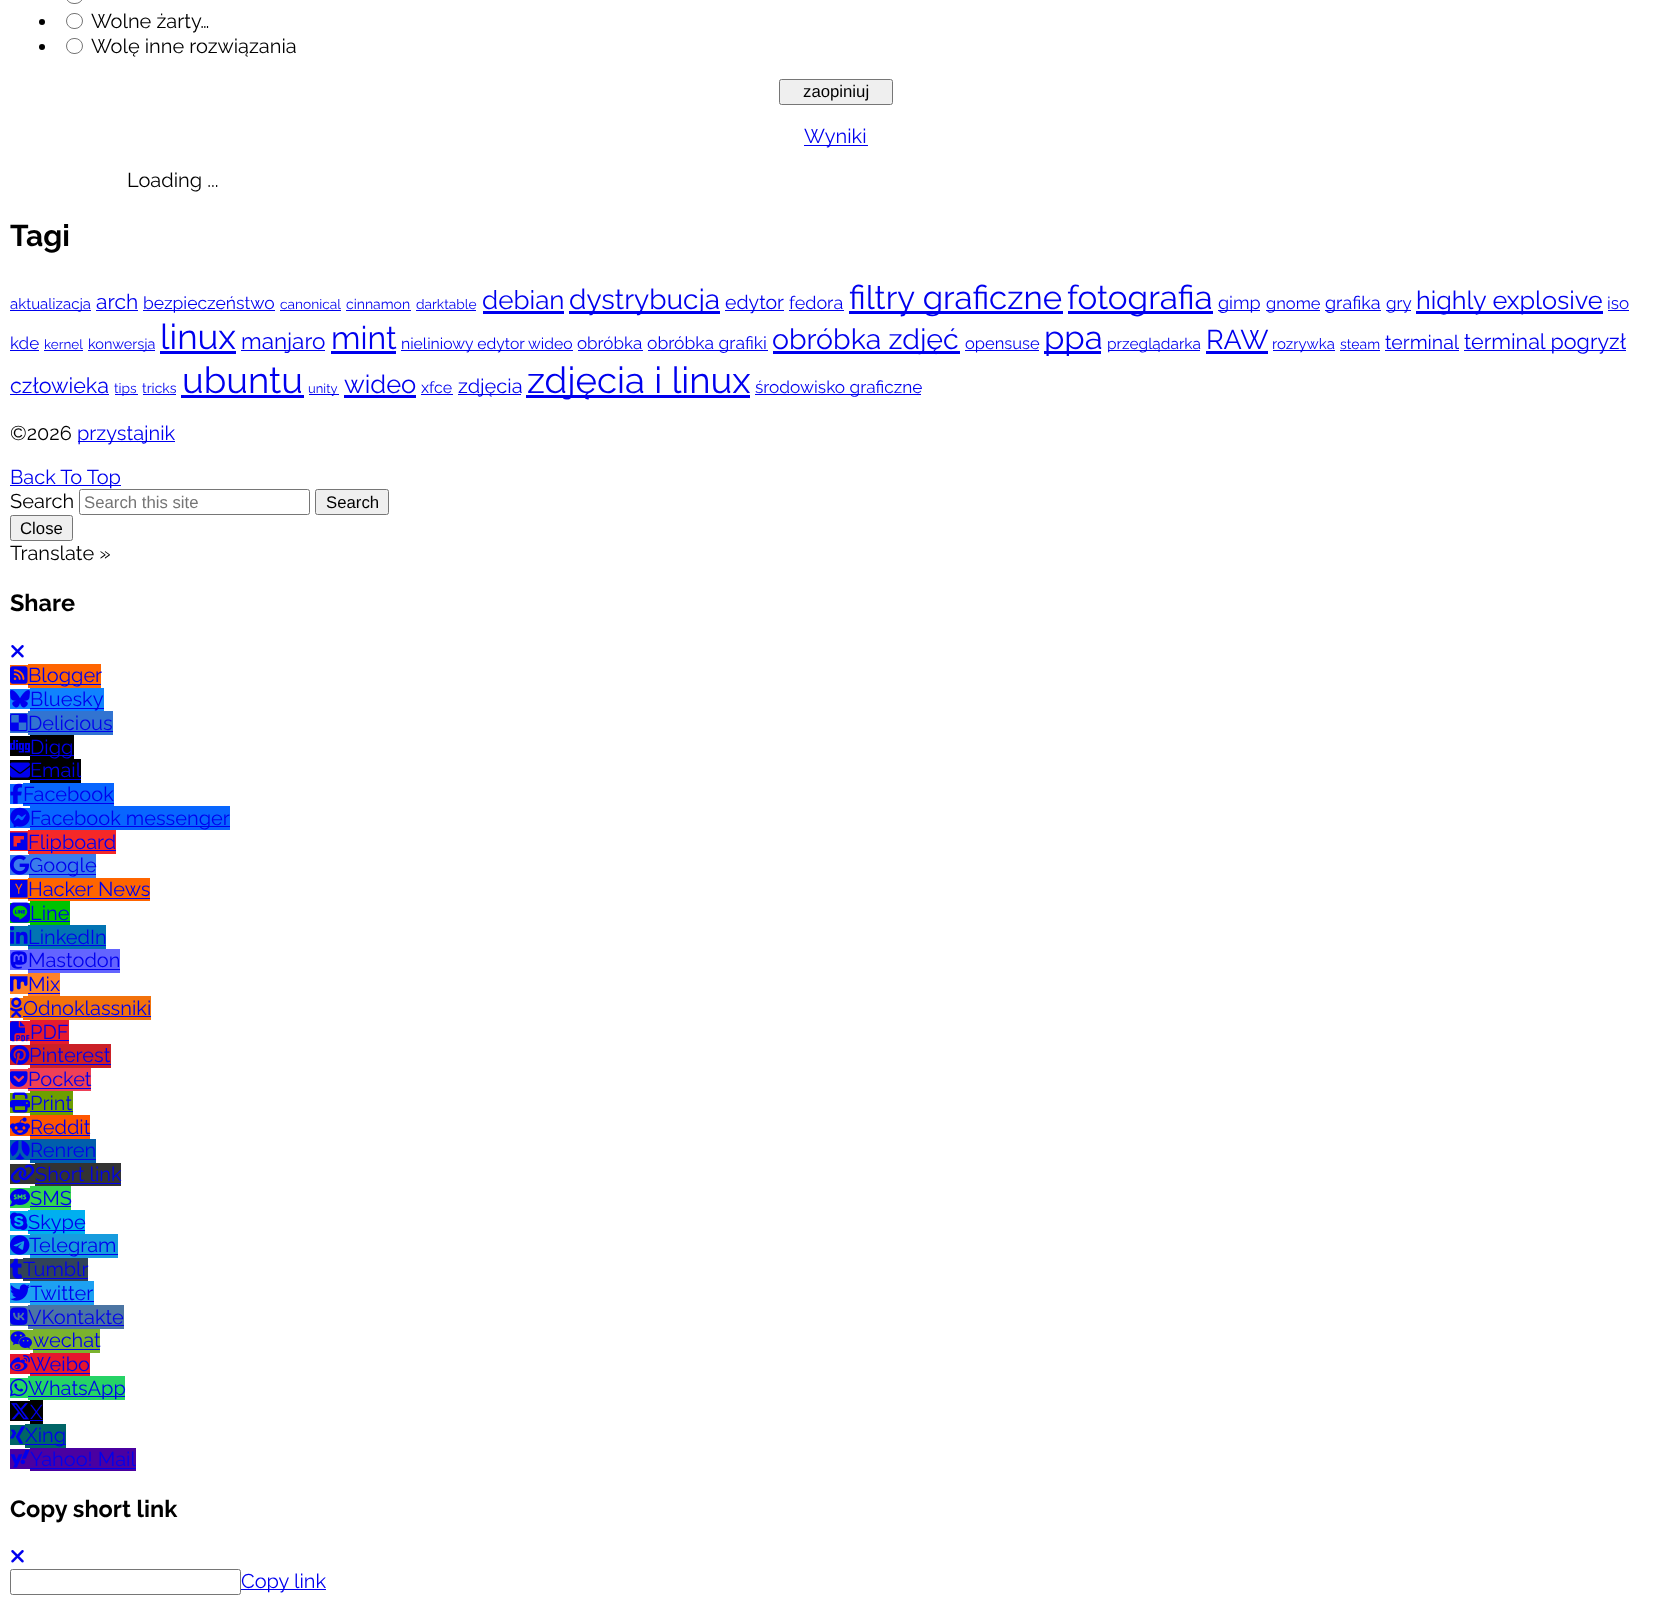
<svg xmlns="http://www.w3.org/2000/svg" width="1671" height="1604">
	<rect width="100%" height="100%" fill="#FFFFFF" />
	<rect x="66.5" y="-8.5" width="16" height="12" rx="7.5" fill="none" stroke="#767676" />
	<circle cx="42" cy="22" r="3" fill="#000000" />
	<rect x="66.5" y="13.5" width="16" height="15" rx="7.5" fill="none" stroke="#767676" />
	<text x="91" y="28" font-family="Raleway" font-size="20" fill="#000000">Wolne żarty…</text>
	<circle cx="42" cy="47" r="3" fill="#000000" />
	<rect x="66.5" y="38.5" width="16" height="15" rx="7.5" fill="none" stroke="#767676" />
	<text x="91" y="53" font-family="Raleway" font-size="20" fill="#000000">Wolę inne rozwiązania</text>
	<rect x="779.5" y="79.5" width="113" height="25" rx="2" fill="#EFEFEF" stroke="#767676" />
	<text x="803" y="97" font-family="Liberation Sans" font-size="16.75" fill="#000000">zaopiniuj</text>
	<rect x="804" y="145" width="64" height="1" fill="#0000EE" />
	<text x="804" y="143" font-family="Raleway" font-size="20" fill="#0000EE">Wyniki</text>
	<text x="127" y="187" font-family="Raleway" font-size="20" fill="#000000">Loading ...</text>
	<text x="10" y="246" font-family="Raleway" font-size="30" font-weight="700" fill="#000000">Tagi</text>
	<rect x="10" y="310" width="81" height="1" fill="#0000EE" />
	<text x="10" y="309" font-family="Raleway" font-size="15" fill="#0000EE">aktualizacja</text>
	<text x="96" y="309" font-family="Raleway" font-size="21" fill="#0000EE">arch</text>
	<rect x="96" y="310" width="42" height="1" fill="#0000EE" />
	<rect x="143" y="310" width="132" height="1" fill="#0000EE" />
	<text x="143" y="309" font-family="Raleway" font-size="17.5" fill="#0000EE">bezpieczeństwo</text>
	<text x="280" y="309" font-family="Raleway" font-size="13.75" fill="#0000EE">canonical</text>
	<rect x="280" y="310" width="61" height="1" fill="#0000EE" />
	<text x="346" y="309" font-family="Raleway" font-size="14" fill="#0000EE">cinnamon</text>
	<rect x="346" y="310" width="65" height="1" fill="#0000EE" />
	<text x="416" y="309" font-family="Raleway" font-size="13.75" fill="#0000EE">darktable</text>
	<rect x="416" y="310" width="60" height="1" fill="#0000EE" />
	<text x="482" y="309" font-family="Raleway" font-size="26" fill="#0000EE">debian</text>
	<rect x="483" y="311" width="81" height="3" fill="#0000EE" />
	<rect x="569" y="311" width="151" height="3" fill="#0000EE" />
	<text x="569" y="309" font-family="Raleway" font-size="28" fill="#0000EE">dystrybucja</text>
	<rect x="725" y="310" width="59" height="1" fill="#0000EE" />
	<text x="725" y="309" font-family="Raleway" font-size="19.5" fill="#0000EE">edytor</text>
	<text x="789" y="309" font-family="Raleway" font-size="18" fill="#0000EE">fedora</text>
	<rect x="789" y="310" width="55" height="1" fill="#0000EE" />
	<rect x="849" y="311" width="214" height="3" fill="#0000EE" />
	<text x="849" y="309" font-family="Raleway" font-size="33" fill="#0000EE">filtry graficzne</text>
	<rect x="1068" y="311" width="145" height="3" fill="#0000EE" />
	<text x="1067" y="309" font-family="Raleway" font-size="33.25" fill="#0000EE">fotografia</text>
	<rect x="1218" y="310" width="42" height="1" fill="#0000EE" />
	<text x="1218" y="309" font-family="Raleway" font-size="18" fill="#0000EE">gimp</text>
	<rect x="1266" y="310" width="54" height="1" fill="#0000EE" />
	<text x="1266" y="309" font-family="Raleway" font-size="16.5" fill="#0000EE">gnome</text>
	<rect x="1325" y="310" width="56" height="1" fill="#0000EE" />
	<text x="1325" y="309" font-family="Raleway" font-size="18" fill="#0000EE">grafika</text>
	<rect x="1386" y="310" width="25" height="1" fill="#0000EE" />
	<text x="1386" y="309" font-family="Raleway" font-size="17" fill="#0000EE">gry</text>
	<rect x="1416" y="311" width="187" height="3" fill="#0000EE" />
	<text x="1416" y="309" font-family="Raleway" font-size="25.25" fill="#0000EE">highly explosive</text>
	<text x="1607" y="309" font-family="Raleway" font-size="17" fill="#0000EE">iso</text>
	<rect x="1608" y="310" width="21" height="1" fill="#0000EE" />
	<text x="10" y="349" font-family="Raleway" font-size="17" fill="#0000EE">kde</text>
	<rect x="10" y="350" width="29" height="1" fill="#0000EE" />
	<text x="44" y="349" font-family="Raleway" font-size="13.5" fill="#0000EE">kernel</text>
	<rect x="44" y="350" width="39" height="1" fill="#0000EE" />
	<rect x="88" y="350" width="67" height="1" fill="#0000EE" />
	<text x="88" y="349" font-family="Raleway" font-size="14.5" fill="#0000EE">konwersja</text>
	<text x="160" y="349" font-family="Raleway" font-size="35" fill="#0000EE">linux</text>
	<rect x="160" y="351" width="76" height="3" fill="#0000EE" />
	<rect x="241" y="350" width="84" height="1" fill="#0000EE" />
	<text x="241" y="349" font-family="Raleway" font-size="22.5" fill="#0000EE">manjaro</text>
	<text x="331" y="349" font-family="Raleway" font-size="32" fill="#0000EE">mint</text>
	<rect x="331" y="351" width="65" height="3" fill="#0000EE" />
	<rect x="401" y="350" width="172" height="1" fill="#0000EE" />
	<text x="401" y="349" font-family="Raleway" font-size="15.75" fill="#0000EE">nieliniowy edytor wideo</text>
	<text x="577" y="349" font-family="Raleway" font-size="17" fill="#0000EE">obróbka</text>
	<rect x="578" y="350" width="65" height="1" fill="#0000EE" />
	<rect x="648" y="350" width="120" height="1" fill="#0000EE" />
	<text x="647" y="349" font-family="Raleway" font-size="17.5" fill="#0000EE">obróbka grafiki</text>
	<rect x="773" y="351" width="187" height="3" fill="#0000EE" />
	<text x="772" y="349" font-family="Raleway" font-size="28.5" fill="#0000EE">obróbka zdjęć</text>
	<rect x="965" y="350" width="74" height="1" fill="#0000EE" />
	<text x="965" y="349" font-family="Raleway" font-size="16.5" fill="#0000EE">opensuse</text>
	<rect x="1044" y="351" width="57" height="3" fill="#0000EE" />
	<text x="1044" y="349" font-family="Raleway" font-size="33" fill="#0000EE">ppa</text>
	<rect x="1108" y="350" width="92" height="1" fill="#0000EE" />
	<text x="1107" y="349" font-family="Raleway" font-size="15.5" fill="#0000EE">przeglądarka</text>
	<text x="1206" y="349" font-family="Raleway" font-size="27" fill="#0000EE">RAW</text>
	<rect x="1206" y="351" width="62" height="3" fill="#0000EE" />
	<rect x="1273" y="350" width="62" height="1" fill="#0000EE" />
	<text x="1272" y="349" font-family="Raleway" font-size="15" fill="#0000EE">rozrywka</text>
	<text x="1340" y="349" font-family="Raleway" font-size="14" fill="#0000EE">steam</text>
	<rect x="1340" y="350" width="40" height="1" fill="#0000EE" />
	<text x="1385" y="349" font-family="Raleway" font-size="19.5" fill="#0000EE">terminal</text>
	<rect x="1385" y="350" width="74" height="1" fill="#0000EE" />
	<rect x="1464" y="350" width="162" height="1" fill="#0000EE" />
	<g font-family="Raleway" font-size="21.5" fill="#0000EE">
		<text x="1464" y="349">terminal pogryzł</text>
		<text x="10" y="393">człowieka</text>
	</g>
	<rect x="10" y="394" width="99" height="1" fill="#0000EE" />
	<rect x="115" y="394" width="23" height="1" fill="#0000EE" />
	<text x="114" y="393" font-family="Raleway" font-size="13.75" fill="#0000EE">tips</text>
	<text x="142" y="393" font-family="Raleway" font-size="14" fill="#0000EE">tricks</text>
	<rect x="143" y="394" width="33" height="1" fill="#0000EE" />
	<text x="182" y="393" font-family="Raleway" font-size="36.5" fill="#0000EE">ubuntu</text>
	<rect x="181" y="395" width="123" height="3" fill="#0000EE" />
	<rect x="309" y="394" width="30" height="1" fill="#0000EE" />
	<text x="308" y="393" font-family="Raleway" font-size="13" fill="#0000EE">unity</text>
	<text x="344" y="393" font-family="Raleway" font-size="25.5" fill="#0000EE">wideo</text>
	<rect x="344" y="395" width="72" height="3" fill="#0000EE" />
	<text x="421" y="393" font-family="Raleway" font-size="16" fill="#0000EE">xfce</text>
	<rect x="421" y="394" width="32" height="1" fill="#0000EE" />
	<rect x="458" y="394" width="63" height="1" fill="#0000EE" />
	<text x="458" y="393" font-family="Raleway" font-size="20" fill="#0000EE">zdjęcia</text>
	<rect x="526" y="395" width="224" height="3" fill="#0000EE" />
	<text x="527" y="393" font-family="Raleway" font-size="36.5" fill="#0000EE">zdjęcia i linux</text>
	<rect x="755" y="394" width="166" height="1" fill="#0000EE" />
	<text x="755" y="393" font-family="Raleway" font-size="17.25" fill="#0000EE">środowisko graficzne</text>
	<text x="10" y="440" font-family="Raleway" font-size="20" fill="#000000">©2026</text>
	<rect x="78" y="441" width="97" height="1" fill="#0000EE" />
	<text x="77" y="440" font-family="Raleway" font-size="20" fill="#0000EE">przystajnik</text>
	<rect x="10" y="485" width="111" height="1" fill="#0000EE" />
	<text x="10" y="484" font-family="Raleway" font-size="20" fill="#0000EE">Back To Top</text>
	<text x="10" y="508" font-family="Raleway" font-size="20" fill="#000000">Search</text>
	<rect x="79.5" y="489.5" width="230" height="25" rx="2" fill="none" stroke="#767676" />
	<text x="84" y="508" font-family="Liberation Sans" font-size="16.75" fill="#757575">Search this site</text>
	<rect x="315.5" y="489.5" width="73" height="25" rx="2" fill="#EFEFEF" stroke="#767676" />
	<text x="326" y="508" font-family="Liberation Sans" font-size="16.75" fill="#000000">Search</text>
	<rect x="10.5" y="515.5" width="62" height="25" rx="2" fill="#EFEFEF" stroke="#767676" />
	<text x="20" y="534" font-family="Liberation Sans" font-size="16.75" fill="#000000">Close</text>
	<text x="10" y="560" font-family="Raleway" font-size="20" fill="#000000">Translate »</text>
	<text x="10" y="611" font-family="Raleway" font-size="23.5" font-weight="700" fill="#000000">Share</text>
	<image x="11" y="645" width="13" height="13" href="assets/img1.png" />
	<rect x="10" y="665" width="18" height="20" fill="#FF6501" />
	<rect x="28" y="664" width="73" height="24" fill="#FF6501" />
	<image x="10" y="666" width="18" height="18" href="assets/img2.png" />
	<rect x="28" y="684" width="73" height="1" fill="#0000EE" />
	<text x="28" y="682" font-family="Raleway" font-size="20" fill="#0000EE">Blogger</text>
	<rect x="10" y="689" width="20" height="20" fill="#1083FE" />
	<rect x="30" y="688" width="74" height="23" fill="#1083FE" />
	<image x="10" y="690" width="20" height="18" href="assets/img3.png" />
	<rect x="30" y="708" width="74" height="1" fill="#0000EE" />
	<text x="30" y="706" font-family="Raleway" font-size="20" fill="#0000EE">Bluesky</text>
	<rect x="10" y="713" width="18" height="20" fill="#3274D1" />
	<rect x="28" y="711" width="85" height="24" fill="#3274D1" />
	<image x="10" y="713" width="18" height="19" href="assets/img4.png" />
	<text x="28" y="730" font-family="Raleway" font-size="20" fill="#0000EE">Delicious</text>
	<rect x="28" y="731" width="85" height="1" fill="#0000EE" />
	<rect x="10" y="736" width="20" height="20" fill="#000000" />
	<rect x="30" y="735" width="44" height="24" fill="#000000" />
	<image x="10" y="740" width="20" height="13" href="assets/img5.png" />
	<rect x="30" y="755" width="44" height="1" fill="#0000EE" />
	<text x="30" y="754" font-family="Raleway" font-size="20" fill="#0000EE">Digg</text>
	<rect x="10" y="760" width="20" height="20" fill="#000000" />
	<rect x="30" y="759" width="51" height="24" fill="#000000" />
	<image x="10" y="762" width="20" height="16" href="assets/img6.png" />
	<text x="30" y="777" font-family="Raleway" font-size="20" fill="#0000EE">Email</text>
	<rect x="30" y="779" width="51" height="1" fill="#0000EE" />
	<rect x="10" y="784" width="13" height="20" fill="#0866FF" />
	<rect x="23" y="783" width="91" height="23" fill="#0866FF" />
	<image x="10" y="783" width="12" height="21" href="assets/img7.png" />
	<text x="23" y="801" font-family="Raleway" font-size="20" fill="#0000EE">Facebook</text>
	<rect x="23" y="803" width="91" height="1" fill="#0000EE" />
	<rect x="10" y="808" width="20" height="20" fill="#0866FF" />
	<rect x="30" y="806" width="200" height="24" fill="#0866FF" />
	<image x="10" y="807" width="20" height="21" href="assets/img8.png" />
	<rect x="30" y="826" width="200" height="1" fill="#0000EE" />
	<text x="30" y="825" font-family="Raleway" font-size="20" fill="#0000EE">Facebook messenger</text>
	<rect x="10" y="831" width="18" height="20" fill="#F52828" />
	<rect x="28" y="830" width="88" height="24" fill="#F52828" />
	<image x="10" y="832" width="18" height="18" href="assets/img9.png" />
	<rect x="28" y="850" width="88" height="1" fill="#0000EE" />
	<text x="28" y="849" font-family="Raleway" font-size="20" fill="#0000EE">Flipboard</text>
	<rect x="10" y="855" width="19" height="20" fill="#3A7CEC" />
	<rect x="29" y="854" width="67" height="24" fill="#3A7CEC" />
	<image x="10" y="855" width="19" height="20" href="assets/img10.png" />
	<rect x="29" y="874" width="67" height="1" fill="#0000EE" />
	<text x="29" y="872" font-family="Raleway" font-size="20" fill="#0000EE">Google</text>
	<rect x="10" y="879" width="18" height="20" fill="#FF6500" />
	<rect x="28" y="878" width="122" height="23" fill="#FF6500" />
	<image x="10" y="880" width="18" height="18" href="assets/img11.png" />
	<text x="28" y="896" font-family="Raleway" font-size="20" fill="#0000EE">Hacker News</text>
	<rect x="28" y="898" width="122" height="1" fill="#0000EE" />
	<rect x="10" y="903" width="20" height="20" fill="#00C300" />
	<rect x="30" y="901" width="40" height="24" fill="#00C300" />
	<image x="10" y="902" width="20" height="21" href="assets/img12.png" />
	<text x="30" y="920" font-family="Raleway" font-size="20" fill="#0000EE">Line</text>
	<rect x="30" y="921" width="40" height="1" fill="#0000EE" />
	<rect x="10" y="926" width="18" height="20" fill="#0274B3" />
	<rect x="28" y="925" width="78" height="24" fill="#0274B3" />
	<image x="10" y="926" width="18" height="18" href="assets/img13.png" />
	<text x="28" y="944" font-family="Raleway" font-size="20" fill="#0000EE">LinkedIn</text>
	<rect x="28" y="945" width="78" height="1" fill="#0000EE" />
	<rect x="10" y="950" width="18" height="20" fill="#6364FF" />
	<rect x="28" y="949" width="92" height="24" fill="#6364FF" />
	<image x="10" y="951" width="17" height="18" href="assets/img14.png" />
	<text x="28" y="967" font-family="Raleway" font-size="20" fill="#0000EE">Mastodon</text>
	<rect x="28" y="969" width="92" height="1" fill="#0000EE" />
	<rect x="10" y="974" width="18" height="20" fill="#FF8226" />
	<rect x="28" y="973" width="32" height="23" fill="#FF8226" />
	<image x="10" y="976" width="18" height="16" href="assets/img15.png" />
	<text x="28" y="991" font-family="Raleway" font-size="20" fill="#0000EE">Mix</text>
	<rect x="28" y="993" width="32" height="1" fill="#0000EE" />
	<rect x="10" y="998" width="13" height="20" fill="#F2720C" />
	<rect x="23" y="996" width="128" height="24" fill="#F2720C" />
	<image x="10" y="997" width="13" height="21" href="assets/img16.png" />
	<text x="23" y="1015" font-family="Raleway" font-size="20" fill="#0000EE">Odnoklassniki</text>
	<rect x="23" y="1016" width="128" height="1" fill="#0000EE" />
	<rect x="10" y="1021" width="20" height="20" fill="#E61B2E" />
	<rect x="30" y="1020" width="39" height="24" fill="#E61B2E" />
	<image x="10" y="1021" width="20" height="21" href="assets/img17.png" />
	<text x="30" y="1039" font-family="Raleway" font-size="20" fill="#0000EE">PDF</text>
	<rect x="30" y="1040" width="39" height="1" fill="#0000EE" />
	<rect x="10" y="1045" width="20" height="20" fill="#CB2027" />
	<rect x="30" y="1044" width="81" height="24" fill="#CB2027" />
	<image x="10" y="1045" width="20" height="20" href="assets/img18.png" />
	<text x="29" y="1062" font-family="Raleway" font-size="20" fill="#0000EE">Pinterest</text>
	<rect x="30" y="1064" width="81" height="1" fill="#0000EE" />
	<rect x="10" y="1069" width="18" height="20" fill="#EF4056" />
	<rect x="28" y="1068" width="63" height="23" fill="#EF4056" />
	<image x="10" y="1071" width="18" height="16" href="assets/img19.png" />
	<text x="28" y="1086" font-family="Raleway" font-size="20" fill="#0000EE">Pocket</text>
	<rect x="28" y="1088" width="63" height="1" fill="#0000EE" />
	<rect x="10" y="1093" width="20" height="20" fill="#6D9F00" />
	<rect x="30" y="1091" width="43" height="24" fill="#6D9F00" />
	<image x="10" y="1092" width="20" height="21" href="assets/img20.png" />
	<text x="30" y="1110" font-family="Raleway" font-size="20" fill="#0000EE">Print</text>
	<rect x="30" y="1111" width="43" height="1" fill="#0000EE" />
	<rect x="10" y="1116" width="20" height="20" fill="#FF5600" />
	<rect x="30" y="1115" width="60" height="24" fill="#FF5600" />
	<image x="10" y="1117" width="20" height="18" href="assets/img21.png" />
	<text x="30" y="1134" font-family="Raleway" font-size="20" fill="#0000EE">Reddit</text>
	<rect x="30" y="1135" width="60" height="1" fill="#0000EE" />
	<rect x="10" y="1140" width="20" height="20" fill="#005EAC" />
	<rect x="30" y="1139" width="66" height="24" fill="#005EAC" />
	<image x="10" y="1140" width="20" height="20" href="assets/img22.png" />
	<text x="30" y="1157" font-family="Raleway" font-size="20" fill="#0000EE">Renren</text>
	<rect x="30" y="1159" width="66" height="1" fill="#0000EE" />
	<rect x="10" y="1164" width="25" height="20" fill="#333333" />
	<rect x="35" y="1163" width="86" height="23" fill="#333333" />
	<image x="10" y="1164" width="25" height="19" href="assets/img23.png" />
	<text x="35" y="1181" font-family="Raleway" font-size="20" fill="#0000EE">Short link</text>
	<rect x="35" y="1183" width="86" height="1" fill="#0000EE" />
	<rect x="10" y="1188" width="20" height="20" fill="#35D54F" />
	<rect x="30" y="1186" width="41" height="24" fill="#35D54F" />
	<image x="10" y="1188" width="20" height="19" href="assets/img24.png" />
	<text x="30" y="1205" font-family="Raleway" font-size="20" fill="#0000EE">SMS</text>
	<rect x="30" y="1206" width="41" height="1" fill="#0000EE" />
	<rect x="10" y="1211" width="18" height="20" fill="#00AFF0" />
	<rect x="28" y="1210" width="57" height="24" fill="#00AFF0" />
	<image x="10" y="1212" width="18" height="18" href="assets/img25.png" />
	<rect x="28" y="1230" width="57" height="1" fill="#0000EE" />
	<text x="28" y="1229" font-family="Raleway" font-size="20" fill="#0000EE">Skype</text>
	<rect x="10" y="1235" width="20" height="20" fill="#179CDE" />
	<rect x="30" y="1234" width="88" height="24" fill="#179CDE" />
	<image x="10" y="1235" width="20" height="20" href="assets/img26.png" />
	<rect x="30" y="1254" width="88" height="1" fill="#0000EE" />
	<text x="29" y="1252" font-family="Raleway" font-size="20" fill="#0000EE">Telegram</text>
	<rect x="10" y="1259" width="13" height="20" fill="#314358" />
	<rect x="23" y="1258" width="65" height="23" fill="#314358" />
	<image x="10" y="1258" width="13" height="21" href="assets/img27.png" />
	<text x="23" y="1276" font-family="Raleway" font-size="20" fill="#0000EE">Tumblr</text>
	<rect x="23" y="1278" width="65" height="1" fill="#0000EE" />
	<rect x="10" y="1283" width="20" height="20" fill="#1DA1F2" />
	<rect x="30" y="1281" width="64" height="24" fill="#1DA1F2" />
	<image x="10" y="1284" width="20" height="17" href="assets/img28.png" />
	<text x="30" y="1300" font-family="Raleway" font-size="20" fill="#0000EE">Twitter</text>
	<rect x="30" y="1301" width="64" height="1" fill="#0000EE" />
	<rect x="10" y="1306" width="18" height="20" fill="#4C75A3" />
	<rect x="28" y="1305" width="96" height="24" fill="#4C75A3" />
	<image x="10" y="1307" width="18" height="18" href="assets/img29.png" />
	<text x="28" y="1324" font-family="Raleway" font-size="20" fill="#0000EE">VKontakte</text>
	<rect x="28" y="1325" width="96" height="1" fill="#0000EE" />
	<rect x="10" y="1330" width="23" height="20" fill="#7BB32E" />
	<rect x="33" y="1329" width="67" height="24" fill="#7BB32E" />
	<image x="10" y="1331" width="22" height="18" href="assets/img30.png" />
	<text x="33" y="1347" font-family="Raleway" font-size="20" fill="#0000EE">wechat</text>
	<rect x="33" y="1349" width="67" height="1" fill="#0000EE" />
	<rect x="10" y="1354" width="20" height="20" fill="#E6162D" />
	<rect x="30" y="1353" width="60" height="23" fill="#E6162D" />
	<image x="10" y="1355" width="20" height="17" href="assets/img31.png" />
	<text x="30" y="1371" font-family="Raleway" font-size="20" fill="#0000EE">Weibo</text>
	<rect x="30" y="1373" width="60" height="1" fill="#0000EE" />
	<rect x="10" y="1378" width="18" height="20" fill="#25D366" />
	<rect x="28" y="1376" width="97" height="24" fill="#25D366" />
	<image x="10" y="1378" width="18" height="19" href="assets/img32.png" />
	<rect x="28" y="1396" width="97" height="1" fill="#0000EE" />
	<text x="28" y="1395" font-family="Raleway" font-size="20" fill="#0000EE">WhatsApp</text>
	<rect x="10" y="1401" width="20" height="20" fill="#000000" />
	<rect x="30" y="1400" width="13" height="24" fill="#000000" />
	<image x="11" y="1403" width="18" height="17" href="assets/img33.png" />
	<text x="30" y="1419" font-family="Raleway" font-size="20" fill="#0000EE">X</text>
	<rect x="30" y="1420" width="13" height="1" fill="#0000EE" />
	<rect x="10" y="1425" width="15" height="20" fill="#006567" />
	<rect x="25" y="1424" width="41" height="24" fill="#006567" />
	<image x="10" y="1426" width="15" height="18" href="assets/img34.png" />
	<rect x="25" y="1444" width="41" height="1" fill="#0000EE" />
	<text x="25" y="1442" font-family="Raleway" font-size="20" fill="#0000EE">Xing</text>
	<rect x="10" y="1449" width="20" height="20" fill="#4A00A1" />
	<rect x="30" y="1448" width="106" height="23" fill="#4A00A1" />
	<image x="10" y="1450" width="20" height="18" href="assets/img35.png" />
	<text x="30" y="1466" font-family="Raleway" font-size="20" fill="#0000EE">Yahoo! Mail</text>
	<rect x="30" y="1468" width="106" height="1" fill="#0000EE" />
	<text x="10" y="1517" font-family="Raleway" font-size="23.5" font-weight="700" fill="#000000">Copy short link</text>
	<image x="11" y="1550" width="13" height="13" href="assets/img1.png" />
	<rect x="10.5" y="1569.5" width="230" height="25" rx="2" fill="none" stroke="#767676" />
	<rect x="241" y="1589" width="85" height="1" fill="#0000EE" />
	<text x="241" y="1588" font-family="Raleway" font-size="20" fill="#0000EE">Copy link</text>
</svg>
